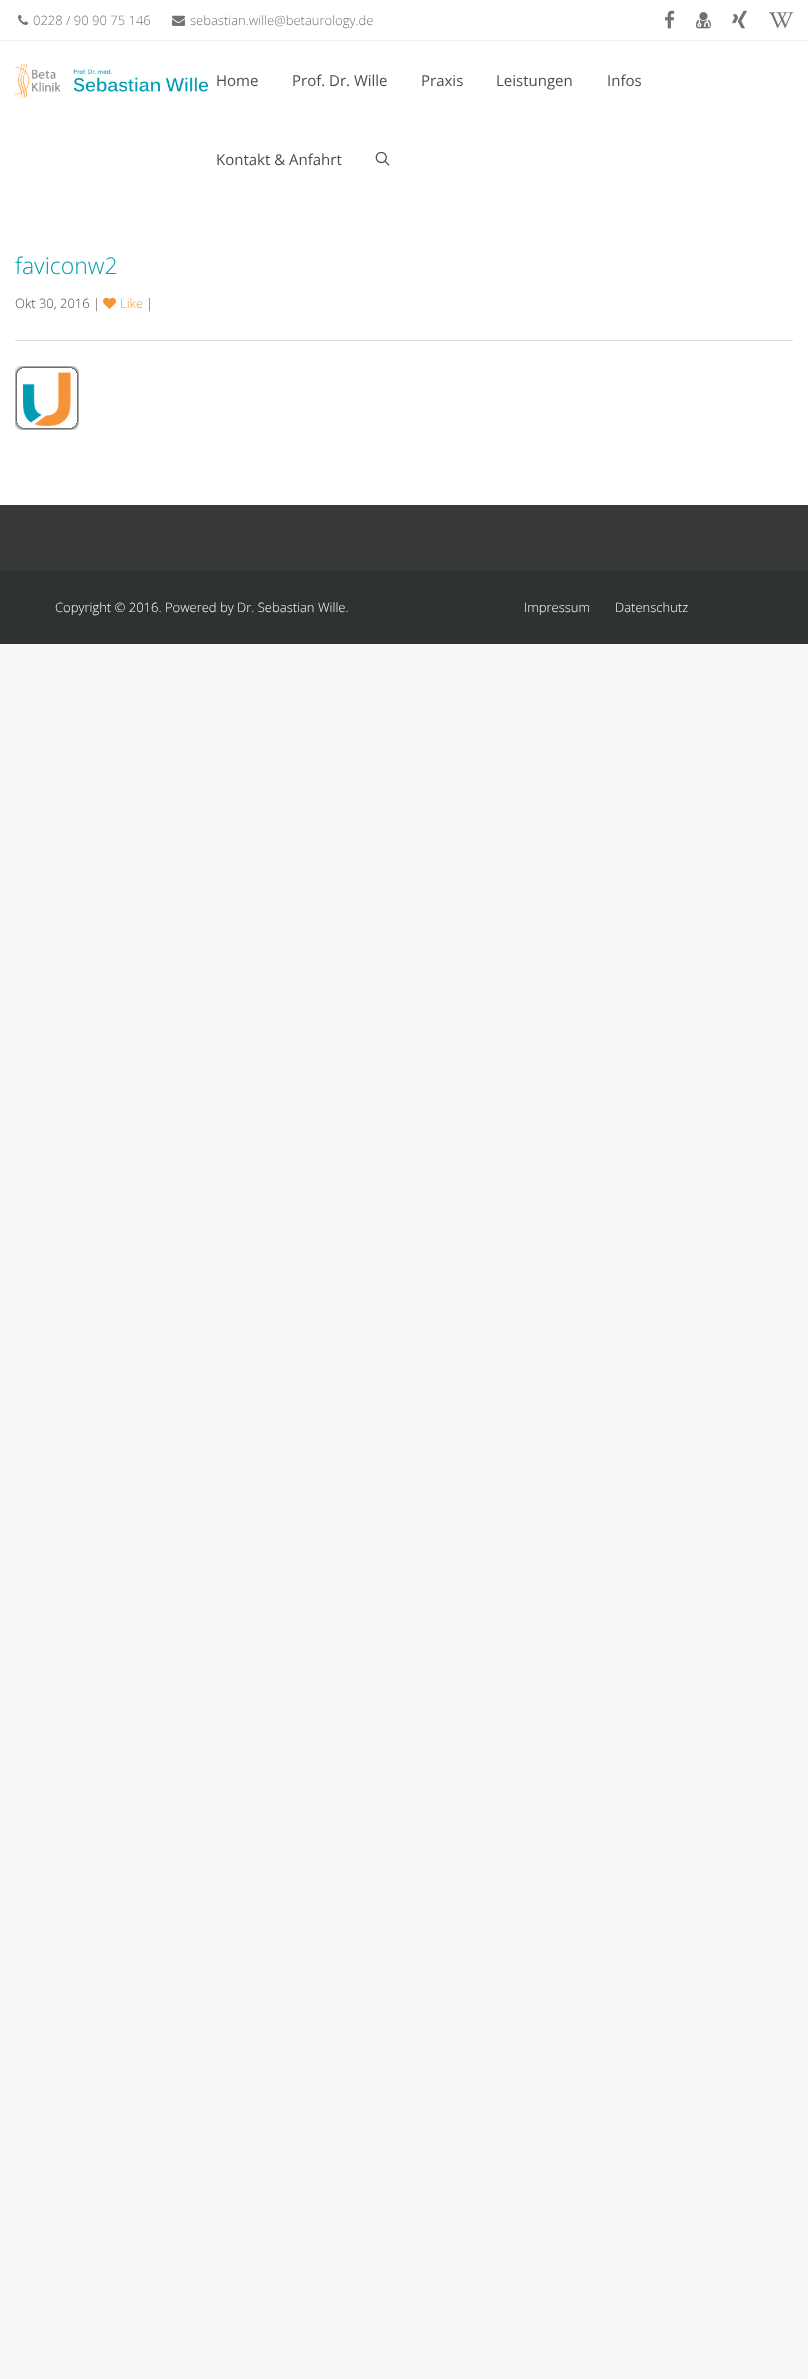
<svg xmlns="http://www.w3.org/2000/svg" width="808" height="2379">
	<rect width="100%" height="100%" fill="#F8F8F8" />
	<rect x="0" y="0" width="808" height="505" fill="#FFFFFF" />
	<rect x="0" y="40" width="808" height="1" fill="#F0F0F0" />
	<image x="18" y="14" width="11" height="11" href="assets/img1.png" />
	<text x="33" y="25" font-family="Open Sans" font-size="13" font-weight="300" fill="#727272">0228 / 90 90 75 146</text>
	<image x="172" y="15" width="13" height="11" href="assets/img2.png" />
	<text x="190" y="25" font-family="Open Sans" font-size="13" font-weight="300" fill="#727272">sebastian.wille@betaurology.de</text>
	<image x="665" y="10" width="10" height="19" href="assets/img3.png" />
	<image x="696" y="12" width="15" height="17" href="assets/img4.png" />
	<image x="732" y="10" width="15" height="19" href="assets/img5.png" />
	<image x="769" y="12" width="25" height="17" href="assets/img6.png" />
	<image x="15" y="64" width="193" height="34" href="assets/img7.png" />
	<g font-family="Open Sans" font-size="15" fill="#4D4D4D">
		<text x="216" y="86">Home</text>
		<text x="292" y="86">Prof. Dr. Wille</text>
		<text x="421" y="86">Praxis</text>
		<text x="496" y="86">Leistungen</text>
		<text x="607" y="86">Infos</text>
		<text x="216" y="165">Kontakt &amp; Anfahrt</text>
	</g>
	<image x="375" y="151" width="15" height="15" href="assets/img8.png" />
	<text x="15" y="274" font-family="Open Sans" font-size="23" font-weight="300" fill="#009DB1">faviconw2</text>
	<rect x="15" y="340" width="778" height="1" fill="#DCDDDE" />
	<text x="15" y="308" font-family="Open Sans" font-size="13" font-weight="300" fill="#4D4D4D">Okt 30, 2016 |</text>
	<image x="103" y="297" width="13" height="12" href="assets/img9.png" />
	<text x="120" y="308" font-family="Open Sans" font-size="13" font-weight="300" fill="#F69439">Like</text>
	<text x="146" y="308" font-family="Open Sans" font-size="13" font-weight="300" fill="#4D4D4D">|</text>
	<image x="15" y="366" width="64" height="64" href="assets/img10.png" />
	<rect x="0" y="505" width="808" height="66" fill="#363839" />
	<rect x="0" y="571" width="808" height="73" fill="#2F3232" />
	<g font-family="Open Sans" font-size="13" font-weight="300" fill="#FFFFFF">
		<text x="55" y="612">Copyright © 2016. Powered by Dr. Sebastian Wille.</text>
		<text x="524" y="612">Impressum</text>
		<text x="615" y="612">Datenschutz</text>
	</g>
</svg>
